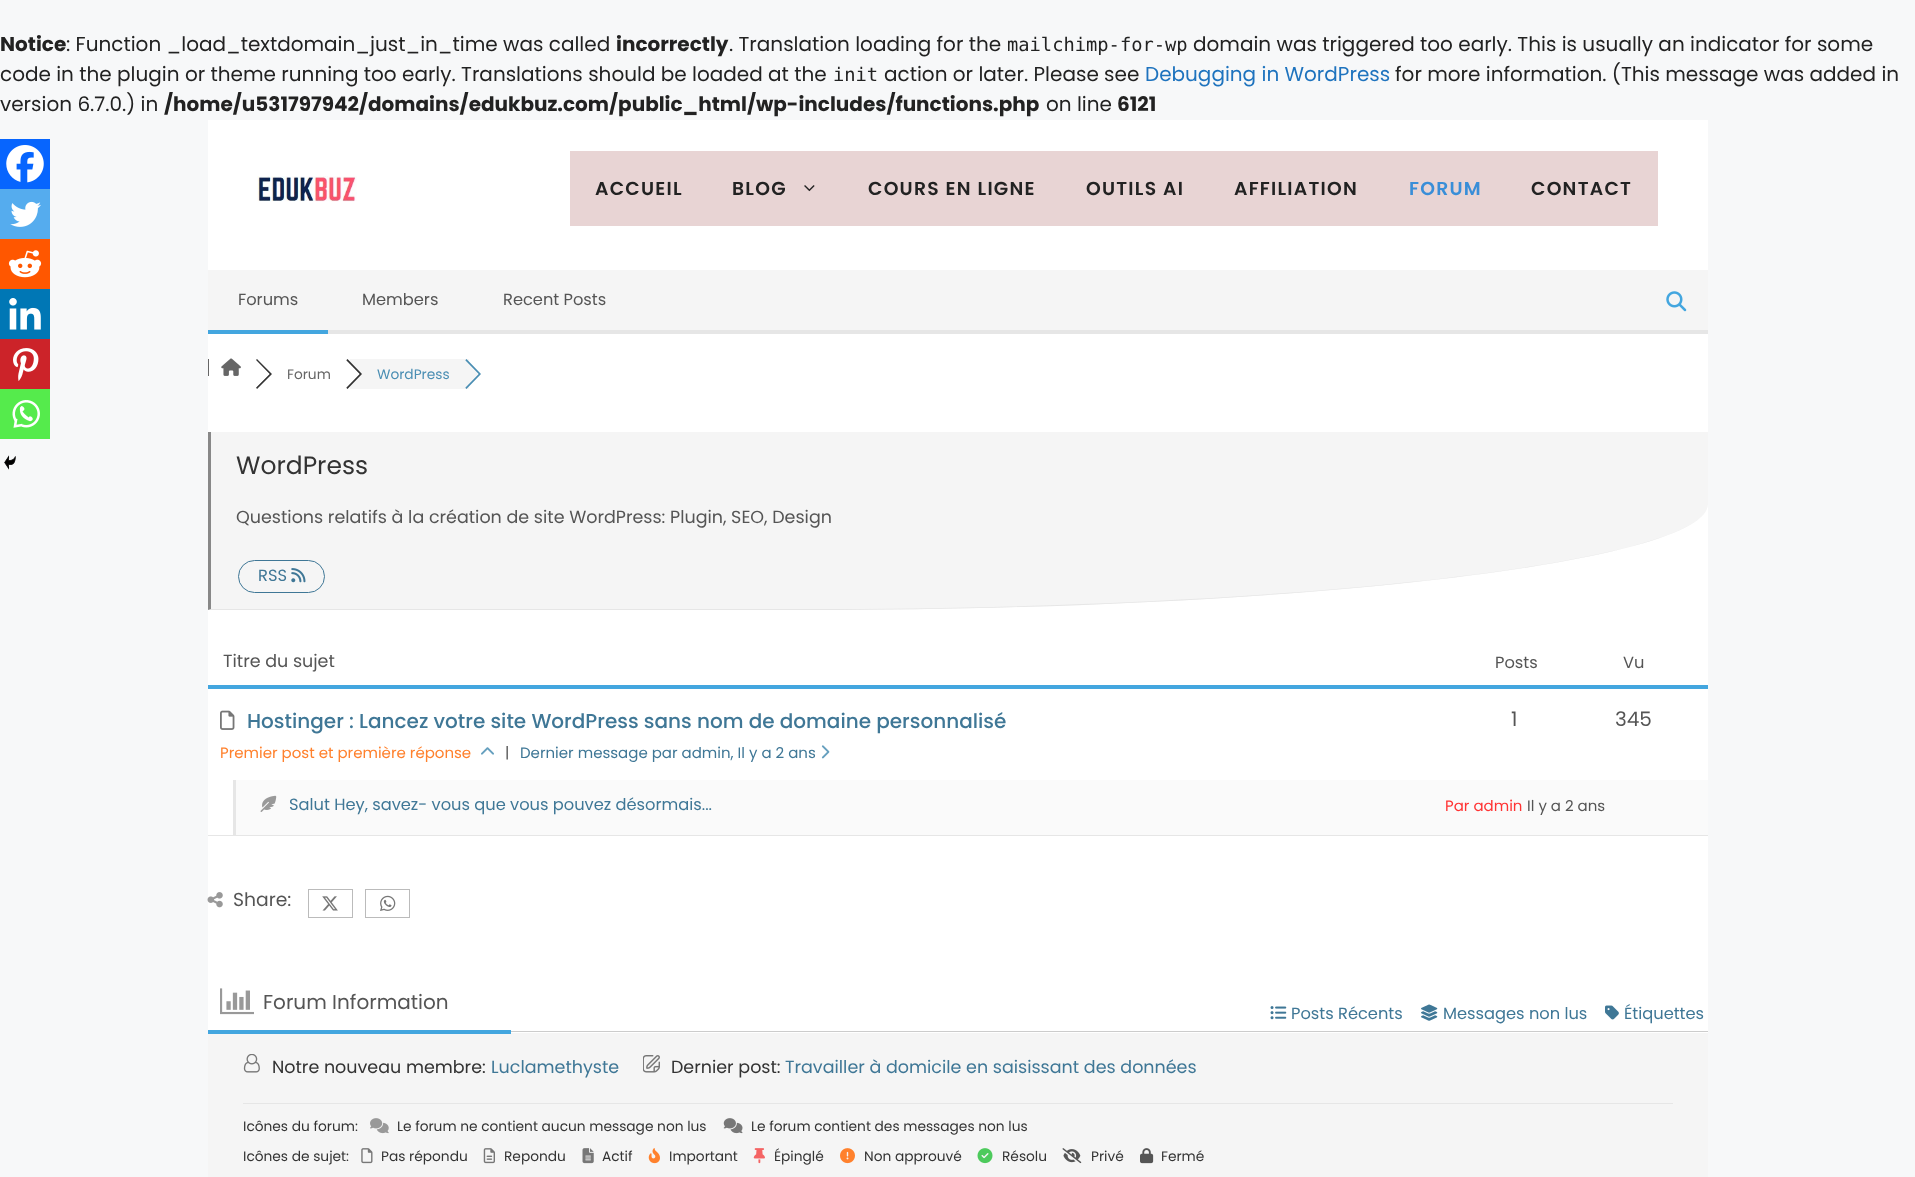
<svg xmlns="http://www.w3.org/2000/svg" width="1915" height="1177">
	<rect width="100%" height="100%" fill="#F7F8F9" />
	<text x="0" y="51" font-family="Poppins" font-size="20" font-weight="700" fill="#222222">Notice</text>
	<text x="66" y="51" font-family="Poppins" font-size="20" fill="#222222">: Function _load_textdomain_just_in_time was called</text>
	<text x="616" y="51" font-family="Poppins" font-size="20" font-weight="700" fill="#222222">incorrectly</text>
	<text x="729" y="51" font-family="Poppins" font-size="20" fill="#222222">. Translation loading for the</text>
	<text x="1007" y="51" font-family="DejaVu Sans Mono" font-size="18.75" fill="#222222">mailchimp-for-wp</text>
	<g font-family="Poppins" font-size="20" fill="#222222">
		<text x="1193" y="51">domain was triggered too early. This is usually an indicator for some</text>
		<text x="0" y="81">code in the plugin or theme running too early. Translations should be loaded at the</text>
	</g>
	<text x="833" y="81" font-family="DejaVu Sans Mono" font-size="18.75" fill="#222222">init</text>
	<text x="884" y="81" font-family="Poppins" font-size="20" fill="#222222">action or later. Please see</text>
	<text x="1145" y="81" font-family="Poppins" font-size="20" fill="#1E73BE">Debugging in WordPress</text>
	<g font-family="Poppins" font-size="20" fill="#222222">
		<text x="1395" y="81">for more information. (This message was added in</text>
		<text x="0" y="111">version 6.7.0.) in</text>
	</g>
	<text x="164" y="111" font-family="Poppins" font-size="20" font-weight="700" fill="#222222">/home/u531797942/domains/edukbuz.com/public_html/wp-includes/functions.php</text>
	<text x="1046" y="111" font-family="Poppins" font-size="20" fill="#222222">on line</text>
	<text x="1117" y="111" font-family="Poppins" font-size="20" font-weight="700" fill="#222222">6121</text>
	<rect x="208" y="120" width="1500" height="913" fill="#FFFFFF" />
	<image x="257" y="176" width="100" height="26" href="assets/img1.png" />
	<rect x="570" y="151" width="1088" height="75" fill="#E8D4D4" />
	<g font-family="Poppins" font-size="18.75" font-weight="600" letter-spacing="1.25" fill="#222222">
		<text x="595" y="195">ACCUEIL</text>
		<text x="732" y="195">BLOG</text>
	</g>
	<image x="804" y="185" width="11" height="7" href="assets/img2.png" />
	<g font-family="Poppins" font-size="18.75" font-weight="600" letter-spacing="1.25" fill="#222222">
		<text x="868" y="195">COURS EN LIGNE</text>
		<text x="1086" y="195">OUTILS AI</text>
		<text x="1234" y="195">AFFILIATION</text>
	</g>
	<text x="1409" y="195" font-family="Poppins" font-size="18.75" font-weight="600" letter-spacing="1.25" fill="#398ED8">FORUM</text>
	<text x="1531" y="195" font-family="Poppins" font-size="18.75" font-weight="600" letter-spacing="1.25" fill="#222222">CONTACT</text>
	<rect x="0" y="139" width="50" height="50" fill="#0765FE" />
	<image x="6" y="145" width="38" height="38" href="assets/img3.png" />
	<rect x="0" y="189" width="50" height="50" fill="#55ACEE" />
	<image x="10" y="201" width="31" height="26" href="assets/img4.png" />
	<rect x="0" y="239" width="50" height="50" fill="#FF5700" />
	<image x="8" y="250" width="34" height="28" href="assets/img5.png" />
	<rect x="0" y="289" width="50" height="50" fill="#0077B5" />
	<image x="9" y="298" width="32" height="32" href="assets/img6.png" />
	<rect x="0" y="339" width="50" height="50" fill="#CC2329" />
	<image x="13" y="348" width="26" height="33" href="assets/img7.png" />
	<rect x="0" y="389" width="50" height="50" fill="#55EB4C" />
	<image x="12" y="400" width="28" height="28" href="assets/img8.png" />
	<image x="4" y="455" width="12" height="15" href="assets/img9.png" />
	<rect x="208" y="270" width="1500" height="60" fill="#F5F5F5" />
	<rect x="328" y="330" width="1380" height="4" fill="#E6E6E6" />
	<rect x="208" y="330" width="120" height="4" fill="#43A6DF" />
	<g font-family="Poppins" font-size="16.25" fill="#555555">
		<text x="238" y="305">Forums</text>
		<text x="362" y="305">Members</text>
		<text x="503" y="305">Recent Posts</text>
	</g>
	<image x="1666" y="291" width="21" height="21" href="assets/img10.png" />
	<rect x="208" y="359" width="1" height="17" fill="#666666" />
	<image x="221" y="358" width="20" height="18" href="assets/img11.png" />
	<path d="M257 359L256 360L269.5 374L256 387.5L257 389L272 374Z" fill="#333333" />
	<path d="M254.5 359L269.5 374L254.5 389L240 374Z" fill="#FFFFFF" />
	<text x="287" y="379" font-family="Poppins" font-size="13.75" fill="#666666">Forum</text>
	<rect x="350" y="359" width="119" height="30" fill="#F5F5F5" />
	<path d="M347.5 359L346 360.5L359.5 374L346 387.5L347.5 389L362 374Z" fill="#333333" />
	<path d="M345 359L359.5 374L345 389L330 374Z" fill="#FFFFFF" />
	<text x="377" y="379" font-family="Poppins" font-size="13.75" fill="#4A8EB3">WordPress</text>
	<path d="M466.5 359L465 360.5L478.5 374L465 387.5L466.5 389L481 374Z" fill="#4A8EB3" />
	<path d="M464 359L478.5 374L464 389L449 374Z" fill="#F5F5F5" />
	<path d="M208 432H1708V504C1708 562 1305 610 808 610H208Z" fill="#F5F5F5" />
	<path d="M208 610H808C1255 610 1626 571 1696 521C1625 571 1255 609 808 609H211Z" fill="#E6E6E6" />
	<path d="M208 610V432H211V609Z" fill="#888888" />
	<text x="236" y="474" font-family="Poppins" font-size="25" fill="#333333">WordPress</text>
	<text x="236" y="523" font-family="Poppins" font-size="17.5" fill="#555555">Questions relatifs à la création de site WordPress: Plugin, SEO, Design</text>
	<rect x="238.5" y="560.5" width="86" height="32" rx="16" fill="none" stroke="#3F7796" />
	<text x="258" y="581" font-family="Poppins" font-size="16.25" fill="#3F7796">RSS</text>
	<image x="291" y="568" width="15" height="15" href="assets/img12.png" />
	<rect x="208" y="685" width="1500" height="4" fill="#43A6DF" />
	<text x="223" y="667" font-family="Poppins" font-size="17.5" fill="#555555">Titre du sujet</text>
	<g font-family="Poppins" font-size="16.25" fill="#555555">
		<text x="1495" y="668">Posts</text>
		<text x="1623" y="668">Vu</text>
	</g>
	<rect x="208" y="835" width="1500" height="1" fill="#E6E6E6" />
	<image x="220" y="710" width="15" height="20" href="assets/img13.png" />
	<text x="247" y="728" font-family="Poppins" font-size="20" font-weight="500" fill="#3F7796">Hostinger : Lancez votre site WordPress sans nom de domaine personnalisé</text>
	<text x="220" y="758" font-family="Poppins" font-size="15" fill="#FF812D">Premier post et première réponse</text>
	<image x="481" y="747" width="13" height="8" href="assets/img14.png" />
	<text x="505" y="758" font-family="Poppins" font-size="15" fill="#555555">|</text>
	<text x="520" y="758" font-family="Poppins" font-size="15" fill="#3F7796">Dernier message par admin, Il y a 2 ans</text>
	<image x="821" y="745" width="9" height="14" href="assets/img15.png" />
	<g font-family="Poppins" font-size="20" fill="#555555">
		<text x="1511" y="726">1</text>
		<text x="1615" y="726">345</text>
	</g>
	<rect x="236" y="780" width="1472" height="55" fill="#FAFAFA" />
	<rect x="233" y="780" width="3" height="55" fill="#E6E6E6" />
	<image x="260" y="795" width="17" height="17" href="assets/img16.png" />
	<text x="289" y="810" font-family="Poppins" font-size="16.25" fill="#3F7796">Salut Hey, savez- vous que vous pouvez désormais...</text>
	<text x="1445" y="811" font-family="Poppins" font-size="15" fill="#FF3333">Par admin</text>
	<text x="1527" y="811" font-family="Poppins" font-size="15" fill="#555555">Il y a 2 ans</text>
	<image x="207" y="892" width="16" height="16" href="assets/img17.png" />
	<text x="233" y="906" font-family="Poppins" font-size="18.75" fill="#555555">Share:</text>
	<rect x="308.5" y="889.5" width="44" height="28" fill="none" stroke="#BBBBBB" />
	<image x="322" y="896" width="16" height="15" href="assets/img18.png" />
	<rect x="365.5" y="889.5" width="44" height="28" fill="none" stroke="#BBBBBB" />
	<image x="380" y="895" width="16" height="16" href="assets/img19.png" />
	<rect x="511" y="1031" width="1197" height="1" fill="#CCCCCC" />
	<rect x="208" y="1033" width="1500" height="144" fill="#F5F5F5" />
	<rect x="208" y="1030" width="303" height="4" fill="#43A6DF" />
	<image x="220" y="988" width="34" height="27" href="assets/img20.png" />
	<text x="263" y="1009" font-family="Poppins" font-size="20" fill="#555555">Forum Information</text>
	<image x="1270" y="1006" width="17" height="14" href="assets/img21.png" />
	<text x="1291" y="1019" font-family="Poppins" font-size="16.25" fill="#3F7796">Posts Récents</text>
	<image x="1421" y="1004" width="17" height="17" href="assets/img22.png" />
	<text x="1443" y="1019" font-family="Poppins" font-size="16.25" fill="#3F7796">Messages non lus</text>
	<image x="1605" y="1005" width="14" height="15" href="assets/img23.png" />
	<text x="1624" y="1019" font-family="Poppins" font-size="16.25" fill="#3F7796">Étiquettes</text>
	<image x="243" y="1054" width="17" height="19" href="assets/img24.png" />
	<text x="272" y="1073" font-family="Poppins" font-size="17.5" fill="#333333">Notre nouveau membre:</text>
	<text x="491" y="1073" font-family="Poppins" font-size="17.5" fill="#3F7796">Luclamethyste</text>
	<image x="643" y="1055" width="17" height="18" href="assets/img25.png" />
	<text x="671" y="1073" font-family="Poppins" font-size="17.5" fill="#333333">Dernier post:</text>
	<text x="785" y="1073" font-family="Poppins" font-size="17.5" fill="#3F7796">Travailler à domicile en saisissant des données</text>
	<rect x="243" y="1103" width="1430" height="1" fill="#E6E6E6" />
	<text x="243" y="1131" font-family="Poppins" font-size="13.75" fill="#333333">Icônes du forum:</text>
	<image x="370" y="1118" width="19" height="16" href="assets/img26.png" />
	<text x="397" y="1131" font-family="Poppins" font-size="13.75" fill="#333333">Le forum ne contient aucun message non lus</text>
	<image x="723" y="1118" width="20" height="16" href="assets/img27.png" />
	<g font-family="Poppins" font-size="13.75" fill="#333333">
		<text x="751" y="1131">Le forum contient des messages non lus</text>
		<text x="243" y="1161">Icônes de sujet:</text>
	</g>
	<image x="361" y="1148" width="12" height="16" href="assets/img28.png" />
	<text x="381" y="1161" font-family="Poppins" font-size="13.75" fill="#333333">Pas répondu</text>
	<image x="483" y="1148" width="12" height="16" href="assets/img29.png" />
	<text x="504" y="1161" font-family="Poppins" font-size="13.75" fill="#333333">Repondu</text>
	<image x="582" y="1148" width="12" height="16" href="assets/img30.png" />
	<text x="602" y="1161" font-family="Poppins" font-size="13.75" fill="#333333">Actif</text>
	<image x="648" y="1148" width="12" height="16" href="assets/img31.png" />
	<text x="669" y="1161" font-family="Poppins" font-size="13.75" fill="#333333">Important</text>
	<image x="753" y="1148" width="12" height="16" href="assets/img32.png" />
	<text x="774" y="1161" font-family="Poppins" font-size="13.75" fill="#333333">Épinglé</text>
	<image x="840" y="1148" width="15" height="16" href="assets/img33.png" />
	<text x="864" y="1161" font-family="Poppins" font-size="13.75" fill="#333333">Non approuvé</text>
	<image x="977" y="1148" width="16" height="16" href="assets/img34.png" />
	<text x="1002" y="1161" font-family="Poppins" font-size="13.75" fill="#333333">Résolu</text>
	<image x="1062" y="1148" width="20" height="16" href="assets/img35.png" />
	<text x="1091" y="1161" font-family="Poppins" font-size="13.75" fill="#333333">Privé</text>
	<image x="1140" y="1148" width="14" height="16" href="assets/img36.png" />
	<text x="1161" y="1161" font-family="Poppins" font-size="13.75" fill="#333333">Fermé</text>
</svg>
